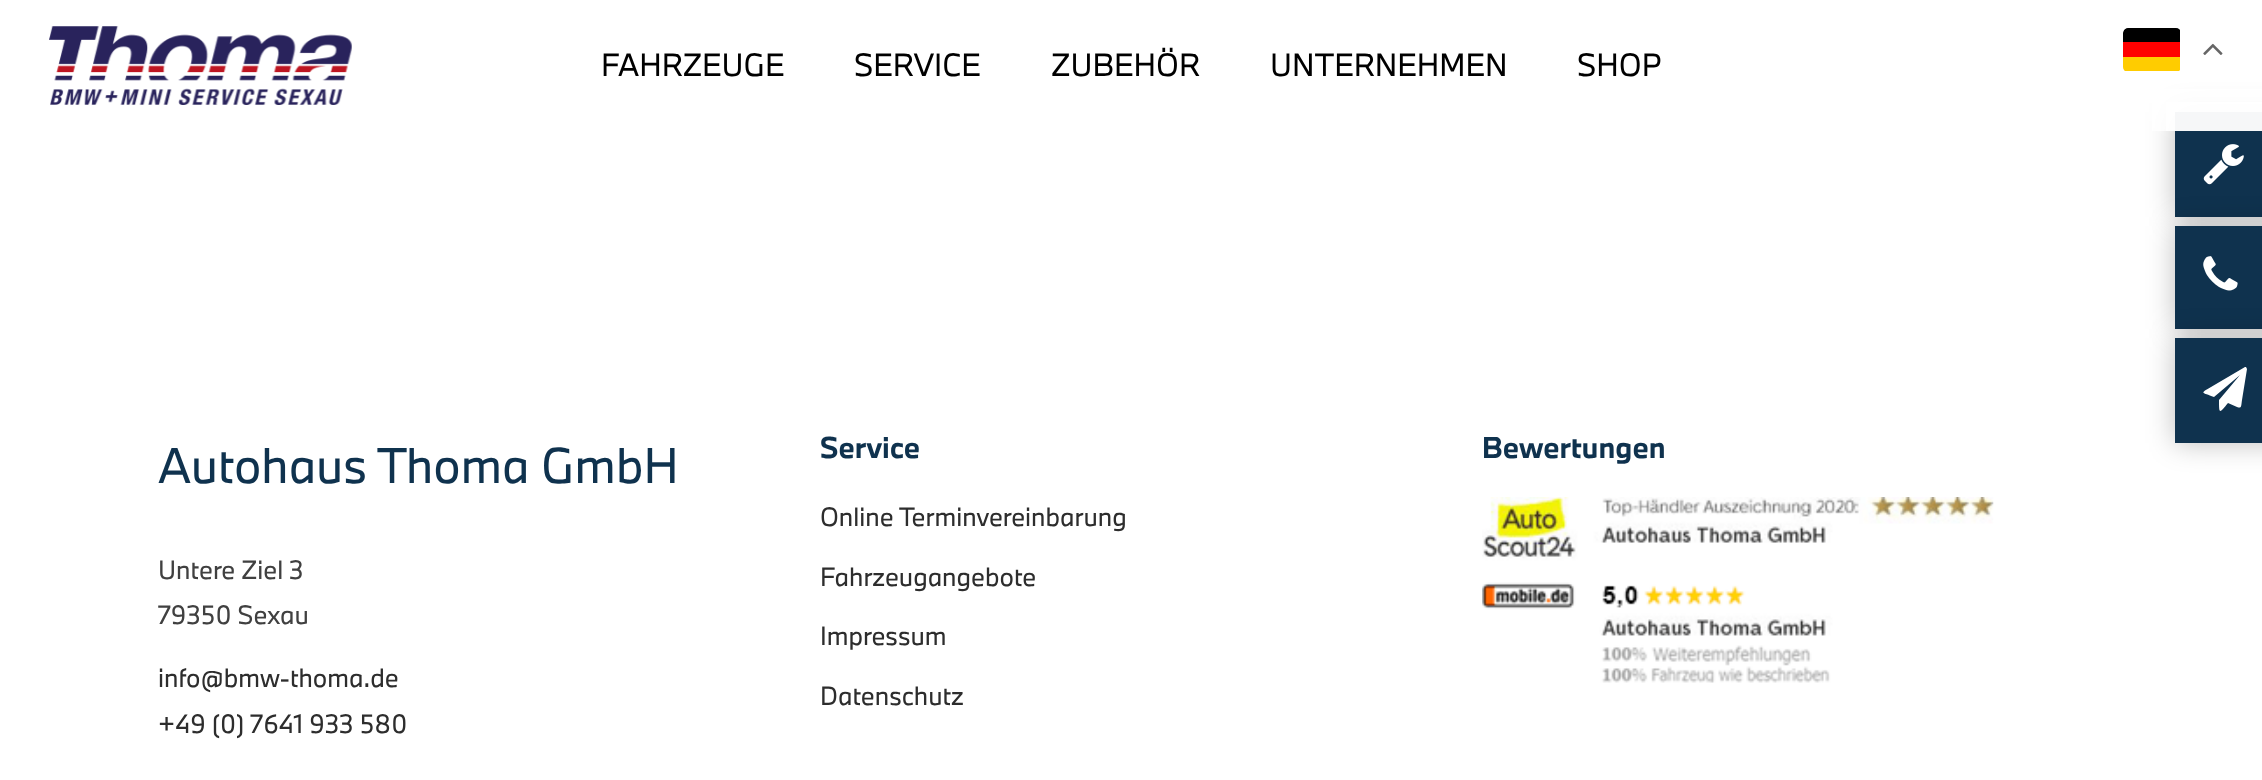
<svg xmlns="http://www.w3.org/2000/svg" width="2262" height="780">
	<defs>
		<clipPath id="clip1"><rect x="2123" y="28" width="58" height="44" rx="5" /></clipPath>
	</defs>
	<rect width="100%" height="100%" fill="#FFFFFF" />
	<rect x="2175" y="112" width="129" height="105" fill="#000000" fill-opacity="0.26" filter="blur(14px)" />
	<rect x="2175" y="112" width="87" height="105" fill="#0F324E" />
	<rect x="2152" y="89" width="110" height="42" fill="#FFFFFF" fill-opacity="0.8" />
	<rect x="2166" y="102" width="96" height="29" fill="#FFFFFF" fill-opacity="0.8" />
	<image x="49" y="26" width="303" height="79" href="assets/img1.png" />
	<g font-family="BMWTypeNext" font-size="29.75" fill="#000000">
		<text x="601" y="76">FAHRZEUGE</text>
		<text x="854" y="76">SERVICE</text>
		<text x="1051" y="76">ZUBEHÖR</text>
		<text x="1270" y="76">UNTERNEHMEN</text>
		<text x="1577" y="76">SHOP</text>
	</g>
	<text x="158" y="483" font-family="BMWTypeNext" font-size="46.5" fill="#0F324E">Autohaus Thoma GmbH</text>
	<g font-family="BMWTypeNext" font-size="24.5" fill="#404040">
		<text x="158" y="579">Untere Ziel 3</text>
		<text x="158" y="624">79350 Sexau</text>
	</g>
	<g font-family="BMWTypeNext" font-size="24.5" fill="#2D2D2D">
		<text x="158" y="687">info@bmw-thoma.de</text>
		<text x="158" y="733">+49 (0) 7641 933 580</text>
	</g>
	<text x="820" y="458" font-family="BMWTypeNext" font-size="28" font-weight="700" fill="#0F324E">Service</text>
	<g font-family="BMWTypeNext" font-size="24.5" fill="#2D2D2D">
		<text x="820" y="526">Online Terminvereinbarung</text>
		<text x="820" y="586">Fahrzeugangebote</text>
		<text x="820" y="645">Impressum</text>
		<text x="820" y="705">Datenschutz</text>
	</g>
	<text x="1482" y="458" font-family="BMWTypeNext" font-size="28" font-weight="700" fill="#0F324E">Bewertungen</text>
	<image x="1482" y="497" width="512" height="186" href="assets/img2.png" />
	<g clip-path="url(#clip1)">
		<rect x="2123" y="57" width="57" height="14" fill="#FFCC00" />
		<path d="M2128 28H2180V42H2123V33C2123 30 2125 28 2128 28Z" fill="#000000" />
	</g>
	<rect x="2123" y="42" width="57" height="15" fill="#FF0000" />
	<image x="2203" y="43" width="20" height="12" href="assets/img3.png" />
	<image x="2203" y="144" width="41" height="41" href="assets/img4.png" />
	<rect x="2175" y="226" width="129" height="103" fill="#000000" fill-opacity="0.26" filter="blur(14px)" />
	<rect x="2175" y="226" width="87" height="103" fill="#0F324E" />
	<image x="2203" y="256" width="35" height="35" href="assets/img5.png" />
	<rect x="2175" y="338" width="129" height="105" fill="#000000" fill-opacity="0.26" filter="blur(14px)" />
	<rect x="2175" y="338" width="87" height="105" fill="#0F324E" />
	<path d="M2246 367L2247 369L2242 400C2241 406 2242 409 2237 407L2228 403C2219 414 2219 414 2219 400L2240 375L2214 397C2202 392 2199 394 2211 387L2245 367Z" fill="#FFFFFF" />
</svg>
